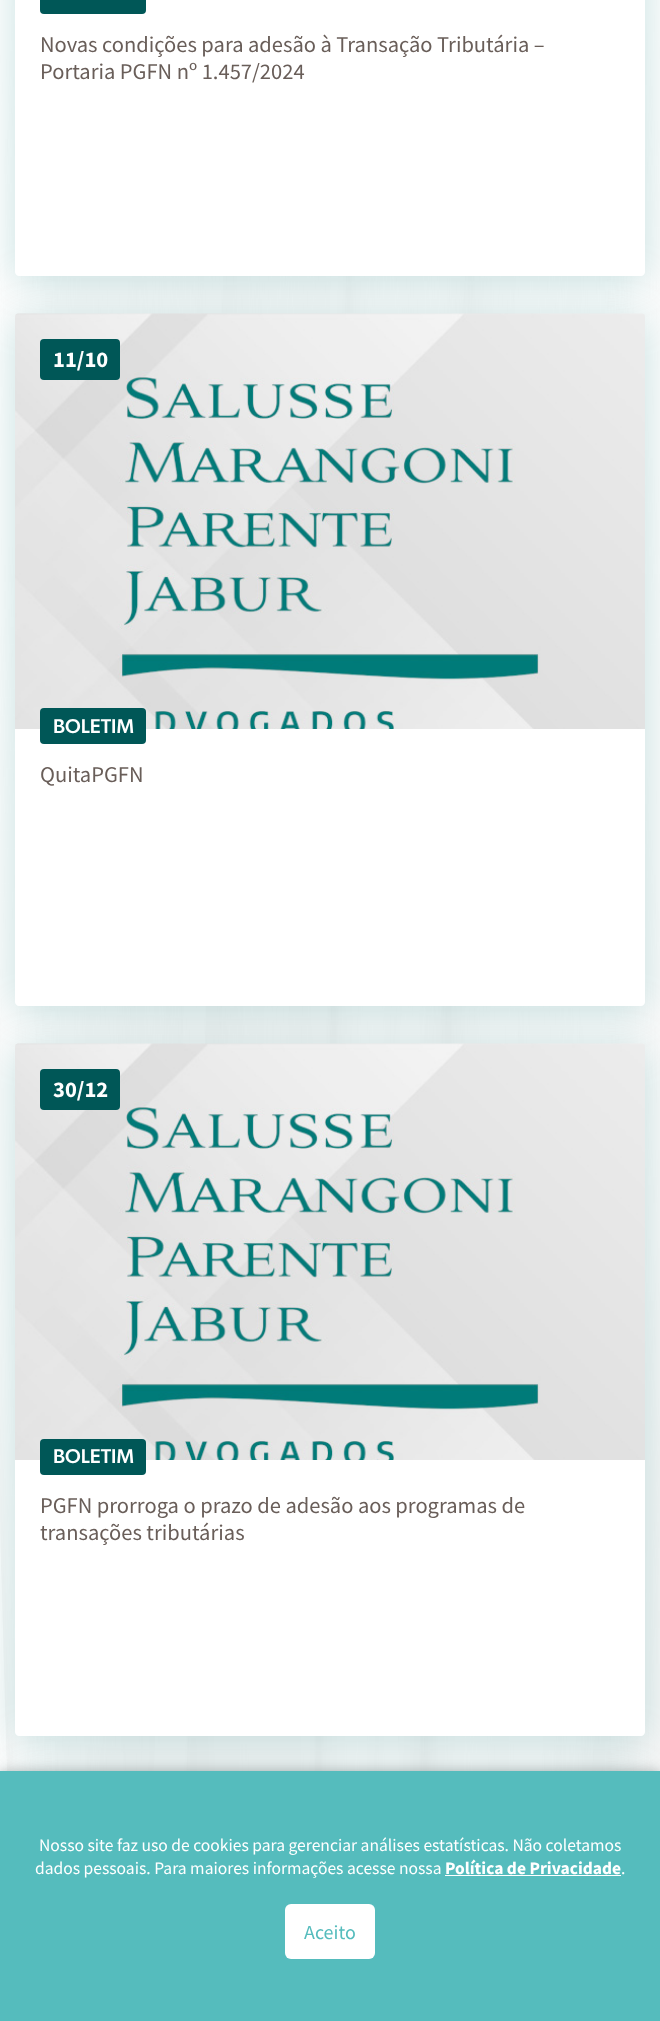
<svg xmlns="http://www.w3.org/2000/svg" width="660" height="2021">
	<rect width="100%" height="100%" fill="#FFFFFF" />
	<image x="0" y="0" width="660" height="1771" href="assets/img1.png" />
	<rect x="15" y="-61" width="630" height="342" rx="4" fill="#008080" fill-opacity="0.2" filter="blur(19px)" />
	<rect x="15" y="319" width="630" height="692" rx="4" fill="#008080" fill-opacity="0.2" filter="blur(19px)" />
	<path d="M15-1H645V272C645 274 643 276 641 276H19C17 276 15 274 15 272Z" fill="#FFFFFF" />
	<rect x="40" y="-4" width="106" height="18" rx="4" fill="#005757" />
	<g font-family="Source Sans Pro" font-size="22.5" fill="#695E59">
		<text x="40" y="52">Novas condições para adesão à Transação Tributária –</text>
		<text x="40" y="79">Portaria PGFN nº 1.457/2024</text>
	</g>
	<image x="15" y="313" width="630" height="416" href="assets/img2.png" />
	<rect x="40" y="339" width="80" height="41" rx="4" fill="#005757" />
	<text x="53" y="367" font-family="Source Sans Pro" font-size="22.5" font-weight="700" fill="#FFFFFF">11/10</text>
	<rect x="15" y="1049" width="630" height="692" rx="4" fill="#008080" fill-opacity="0.2" filter="blur(19px)" />
	<path d="M15 729H645V1002C645 1004 643 1006 641 1006H19C17 1006 15 1004 15 1002Z" fill="#FFFFFF" />
	<rect x="40" y="708" width="106" height="36" rx="4" fill="#005757" />
	<text x="53" y="733" font-family="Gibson" font-size="20" font-weight="500" fill="#FFFFFF">BOLETIM</text>
	<text x="40" y="782" font-family="Source Sans Pro" font-size="22.5" fill="#695E59">QuitaPGFN</text>
	<image x="15" y="1043" width="630" height="417" href="assets/img3.png" />
	<rect x="40" y="1069" width="80" height="41" rx="4" fill="#005757" />
	<text x="53" y="1097" font-family="Source Sans Pro" font-size="22.5" font-weight="700" fill="#FFFFFF">30/12</text>
	<rect x="15" y="1779" width="630" height="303" rx="4" fill="#008080" fill-opacity="0.2" filter="blur(19px)" />
	<path d="M15 1460H645V1732C645 1734 643 1736 641 1736H19C17 1736 15 1734 15 1732Z" fill="#FFFFFF" />
	<rect x="40" y="1439" width="106" height="36" rx="4" fill="#005757" />
	<text x="53" y="1463" font-family="Gibson" font-size="20" font-weight="500" fill="#FFFFFF">BOLETIM</text>
	<g font-family="Source Sans Pro" font-size="22.5" fill="#695E59">
		<text x="40" y="1513">PGFN prorroga o prazo de adesão aos programas de</text>
		<text x="40" y="1540">transações tributárias</text>
	</g>
	<rect x="0" y="1771" width="660" height="250" fill="#000000" fill-opacity="0.25" filter="blur(6px)" />
	<rect x="0" y="1771" width="660" height="250" fill="#55BCBD" />
	<g font-family="Source Sans Pro" font-size="17.5" fill="#FFFFFF">
		<text x="39" y="1851">Nosso site faz uso de cookies para gerenciar análises estatísticas. Não coletamos</text>
		<text x="35" y="1874">dados pessoais. Para maiores informações acesse nossa</text>
	</g>
	<text x="445" y="1874" font-family="Source Sans Pro" font-size="17.5" font-weight="700" fill="#FFFFFF">Política de Privacidade</text>
	<rect x="445" y="1875" width="176" height="1" fill="#FFFFFF" />
	<text x="621" y="1874" font-family="Source Sans Pro" font-size="17.5" fill="#FFFFFF">.</text>
	<rect x="285" y="1904" width="90" height="55" rx="6" fill="#FFFFFF" />
	<text x="304" y="1939" font-family="Source Sans Pro" font-size="20" fill="#55BCBD">Aceito</text>
</svg>
